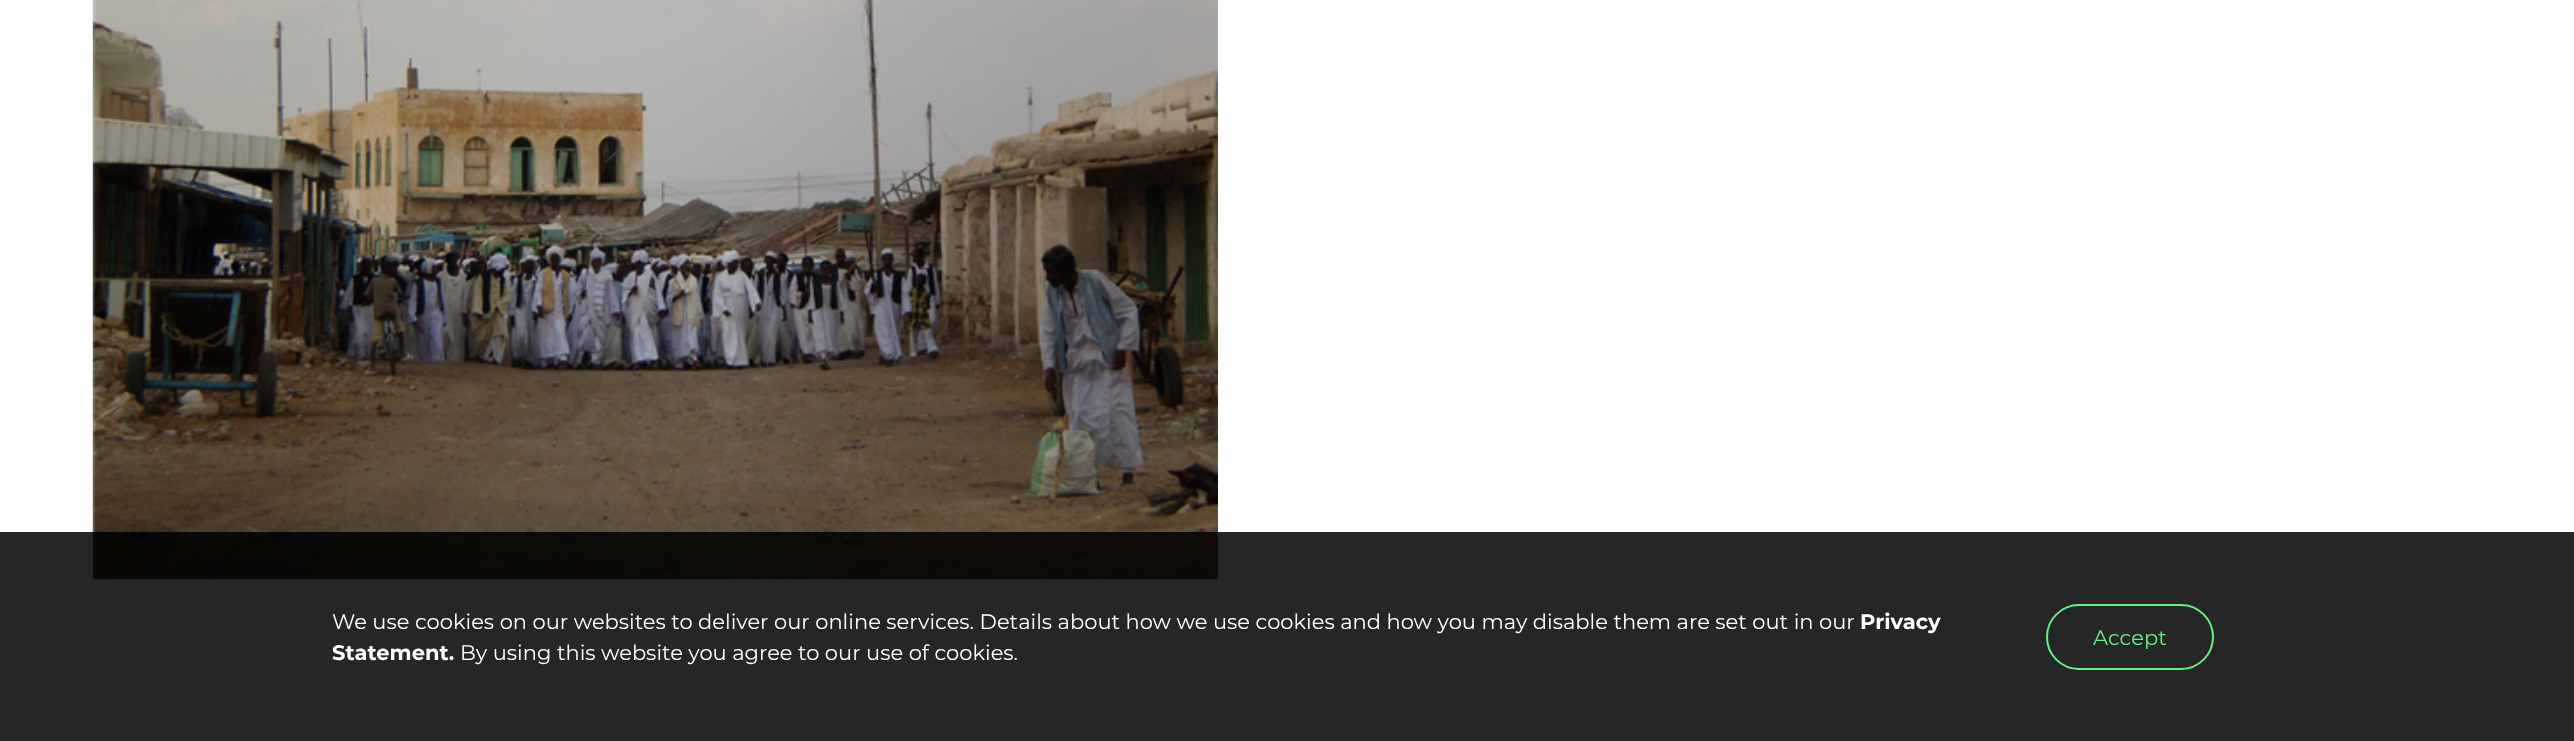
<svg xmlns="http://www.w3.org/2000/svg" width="2574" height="741">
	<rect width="100%" height="100%" fill="#FFFFFF" />
	<image x="92" y="0" width="1126" height="580" href="assets/img1.png" />
	<rect x="0" y="532" width="2574" height="209" fill="#000000" fill-opacity="0.85" />
	<text x="332" y="629" font-family="Montserrat" font-size="21" fill="#FFFFFF">We use cookies on our websites to deliver our online services. Details about how we use cookies and how you may disable them are set out in our</text>
	<g font-family="Montserrat" font-size="21" font-weight="700" fill="#FFFFFF">
		<text x="1860" y="629">Privacy</text>
		<text x="332" y="660">Statement.</text>
	</g>
	<text x="460" y="660" font-family="Montserrat" font-size="21" fill="#FFFFFF">By using this website you agree to our use of cookies.</text>
	<rect x="2047" y="605" width="166" height="64" rx="32" fill="none" stroke="#63F082" stroke-width="2" />
	<text x="2093" y="645" font-family="Montserrat" font-size="21" fill="#63F082">Accept</text>
</svg>
